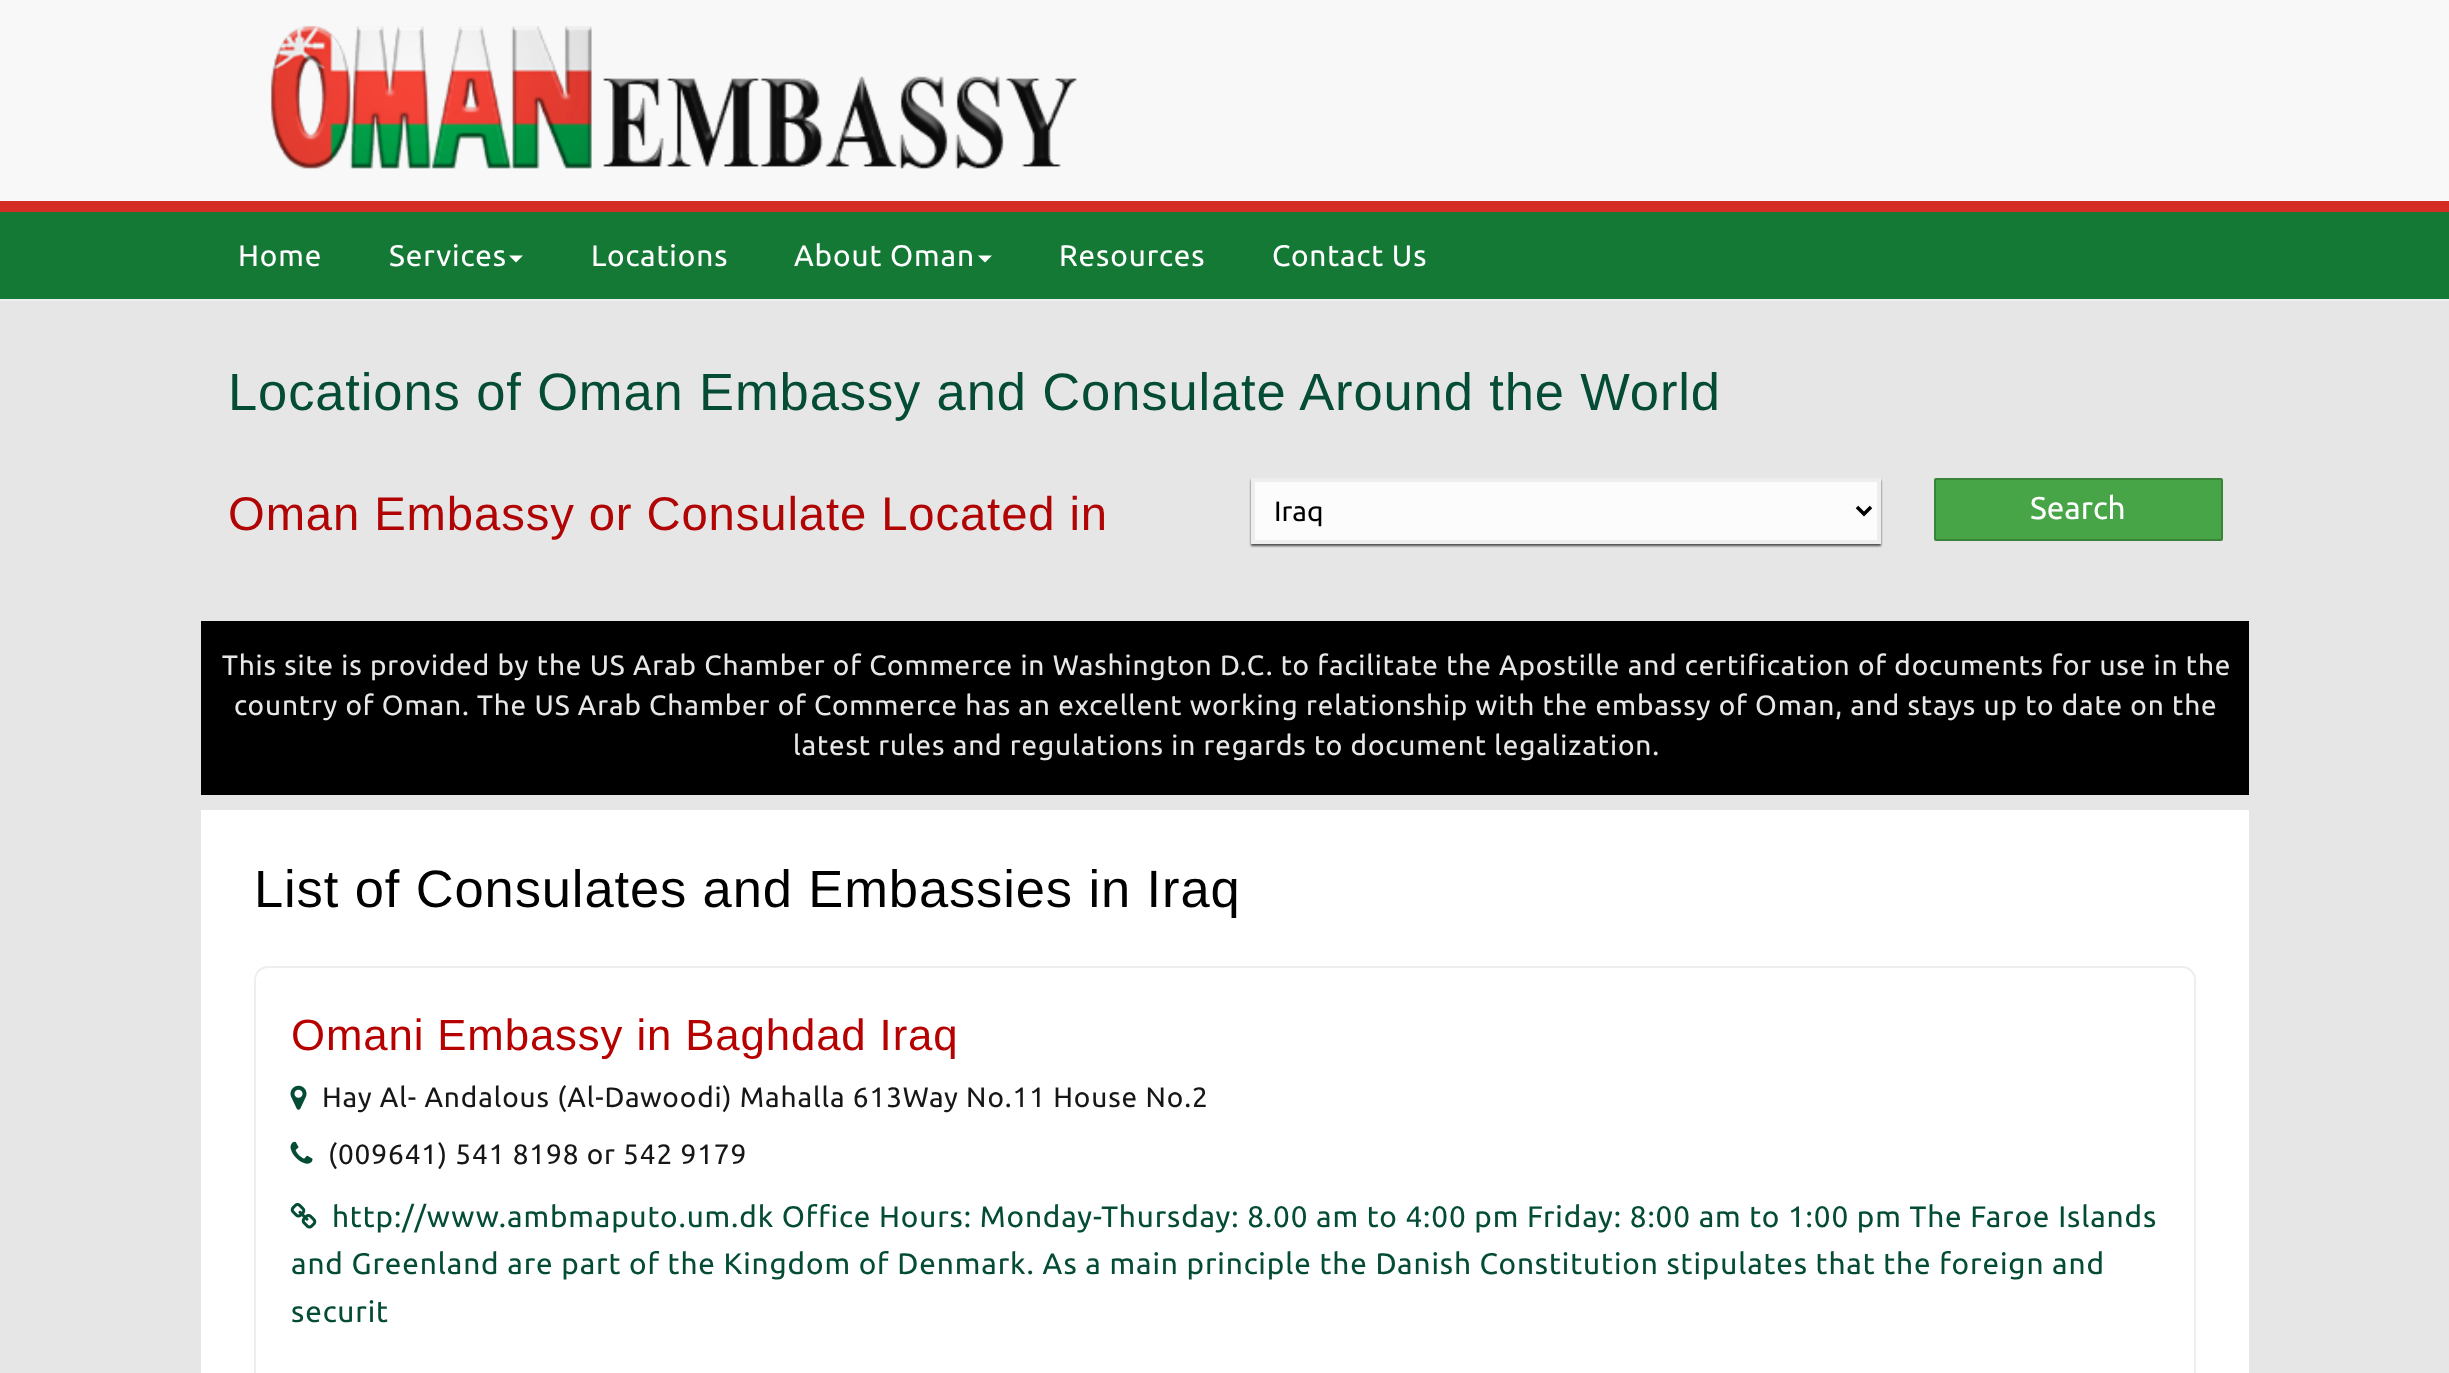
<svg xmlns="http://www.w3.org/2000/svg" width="2449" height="1373">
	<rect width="100%" height="100%" fill="#E6E6E6" />
	<rect x="0" y="0" width="2449" height="201" fill="#F8F8F8" />
	<rect x="0" y="201" width="2449" height="11" fill="#D42D23" />
	<image x="270" y="25" width="807" height="144" href="assets/img1.png" />
	<rect x="0" y="212" width="2449" height="87" fill="#157936" />
	<rect x="0" y="299" width="2449" height="2" fill="#EEEEEE" />
	<g font-family="Ubuntu" font-size="29.75" letter-spacing="0.88" fill="#FFFFFF">
		<text x="238" y="266">Home</text>
		<text x="389" y="266">Services</text>
	</g>
	<path d="M509 255.5H523L516 262.5Z" fill="#FFFFFF" />
	<g font-family="Ubuntu" font-size="29.75" letter-spacing="0.88" fill="#FFFFFF">
		<text x="591" y="266">Locations</text>
		<text x="794" y="266">About Oman</text>
	</g>
	<path d="M978 255.5H992L985 262.5Z" fill="#FFFFFF" />
	<g font-family="Ubuntu" font-size="29.75" letter-spacing="0.88" fill="#FFFFFF">
		<text x="1059" y="266">Resources</text>
		<text x="1272" y="266">Contact Us</text>
	</g>
	<text x="228" y="410" font-family="Liberation Sans" font-size="52.5" letter-spacing="0.88" fill="#044C36">Locations of Oman Embassy and Consulate Around the World</text>
	<text x="228" y="530" font-family="Liberation Sans" font-size="47.25" letter-spacing="0.88" fill="#B10505">Oman Embassy or Consulate Located in</text>
	<rect x="1251" y="480" width="630" height="66" fill="#4E4B4B" filter="blur(1px)" />
	<rect x="1253" y="480" width="626" height="62" fill="#FCFCFC" stroke="#EEEEEE" stroke-width="4" />
	<path d="M1857 507L1864 514L1871 507" fill="none" stroke="#000000" stroke-width="3.5" />
	<text x="1274" y="521" font-family="Ubuntu" font-size="28" fill="#000000">Iraq</text>
	<rect x="1935" y="479" width="287" height="61" rx="1" fill="#47A447" stroke="#398439" stroke-width="2" />
	<text x="2030" y="519" font-family="Ubuntu" font-size="31.5" fill="#FFFFFF">Search</text>
	<rect x="201" y="621" width="2048" height="174" fill="#000000" />
	<g font-family="Ubuntu" font-size="28" letter-spacing="0.88" fill="#E7E7E8">
		<text x="222" y="675">This site is provided by the US Arab Chamber of Commerce in Washington D.C. to facilitate the Apostille and certification of documents for use in the</text>
		<text x="234" y="715">country of Oman. The US Arab Chamber of Commerce has an excellent working relationship with the embassy of Oman, and stays up to date on the</text>
		<text x="793" y="755">latest rules and regulations in regards to document legalization.</text>
	</g>
	<rect x="201" y="810" width="2048" height="563" fill="#FFFFFF" />
	<text x="254" y="907" font-family="Liberation Sans" font-size="52.5" letter-spacing="0.88" fill="#000000">List of Consulates and Embassies in Iraq</text>
	<rect x="255" y="967" width="1940" height="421" rx="13" fill="none" stroke="#EEEEEE" stroke-width="2" />
	<text x="291" y="1050" font-family="Liberation Sans" font-size="43.75" letter-spacing="0.88" fill="#B70000">Omani Embassy in Baghdad Iraq</text>
	<image x="290" y="1085" width="17" height="25" href="assets/img2.png" />
	<text x="322" y="1107" font-family="Ubuntu" font-size="28" letter-spacing="0.88" fill="#171717">Hay Al- Andalous (Al-Dawoodi) Mahalla 613Way No.11 House No.2</text>
	<image x="290" y="1141" width="23" height="23" href="assets/img3.png" />
	<text x="328" y="1164" font-family="Ubuntu" font-size="28" letter-spacing="0.88" fill="#171717">(009641) 541 8198 or 542 9179</text>
	<image x="290" y="1203" width="27" height="26" href="assets/img4.png" />
	<g font-family="Ubuntu" font-size="29.75" letter-spacing="0.88" fill="#044C36">
		<text x="332" y="1227">http://www.ambmaputo.um.dk Office Hours: Monday-Thursday: 8.00 am to 4:00 pm Friday: 8:00 am to 1:00 pm The Faroe Islands</text>
		<text x="291" y="1274">and Greenland are part of the Kingdom of Denmark. As a main principle the Danish Constitution stipulates that the foreign and</text>
		<text x="291" y="1322">securit</text>
	</g>
</svg>
